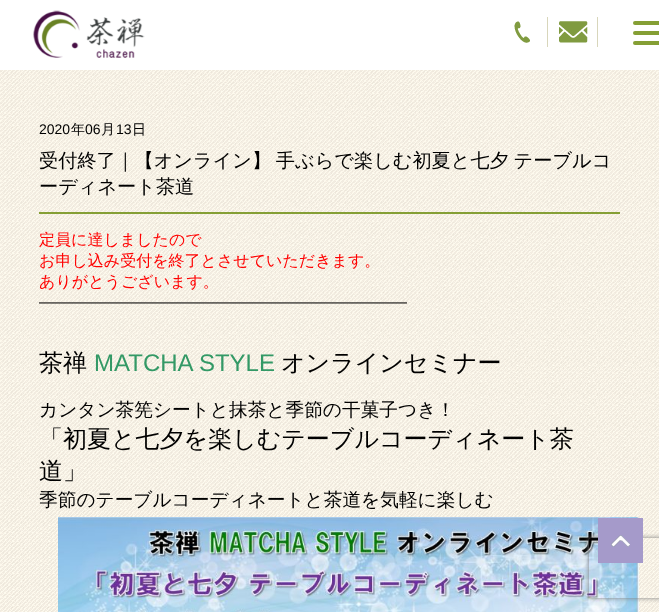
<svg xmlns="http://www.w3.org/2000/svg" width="659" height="612">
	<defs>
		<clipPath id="clip1"><path d="M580 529H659V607H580ZM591 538H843C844 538 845 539 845 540V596C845 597 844 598 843 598H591C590 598 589 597 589 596V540C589 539 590 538 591 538Z" clip-rule="evenodd" /></clipPath>
	</defs>
	<rect width="100%" height="100%" fill="#FFFFFF" />
	<image x="33" y="10" width="112" height="48" href="assets/img1.png" />
	<rect x="633" y="21" width="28" height="4" rx="2" fill="#859F35" />
	<rect x="633" y="31" width="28" height="4" rx="2" fill="#859F35" />
	<rect x="633" y="41" width="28" height="4" rx="2" fill="#859F35" />
	<rect x="547" y="17" width="1" height="30" fill="#D8D6BB" />
	<image x="514" y="21" width="16" height="22" href="assets/img2.png" />
	<rect x="597" y="17" width="1" height="30" fill="#D8D6BB" />
	<image x="559" y="21" width="29" height="22" href="assets/img3.png" />
	<image x="0" y="70" width="659" height="542" href="assets/img5.png" />
	<image x="58" y="517" width="581" height="95" href="assets/img6.png" />
	<g clip-path="url(#clip1)">
		<rect x="589" y="538" width="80" height="60" rx="2" fill="#808080" filter="blur(2.5px)" />
	</g>
	<image x="598" y="518" width="45" height="45" href="assets/img4.png" />
	<text x="39" y="134" font-family="Liberation Sans" font-size="14" fill="#000000">2020</text>
	<text x="71" y="134" font-family="WenQuanYi Zen Hei" font-size="14" font-weight="500" fill="#000000">年</text>
	<text x="85" y="134" font-family="Liberation Sans" font-size="14" fill="#000000">06</text>
	<text x="101" y="134" font-family="WenQuanYi Zen Hei" font-size="14" font-weight="500" fill="#000000">月</text>
	<text x="116" y="134" font-family="Liberation Sans" font-size="14" fill="#000000">13</text>
	<text x="132" y="134" font-family="WenQuanYi Zen Hei" font-size="14" font-weight="500" fill="#000000">日</text>
	<rect x="39" y="212" width="581" height="2" fill="#859F35" />
	<g font-family="WenQuanYi Zen Hei" font-size="19.2" font-weight="500" fill="#000000">
		<text x="39" y="167" word-spacing="-1">受付終了｜【オンライン】 手ぶらで楽しむ初夏と七夕 テーブルコ</text>
		<text x="39" y="193">ーディネート茶道</text>
	</g>
	<g font-family="WenQuanYi Zen Hei" font-size="16" font-weight="500" fill="#FF0000">
		<text x="39" y="245">定員に達しましたので</text>
		<text x="39" y="266">お申し込み受付を終了とさせていただきます。</text>
		<text x="39" y="287">ありがとうございます。</text>
	</g>
	<text x="39" y="307" font-family="Liberation Sans" font-size="16" fill="#000000">———————————————————————</text>
	<text x="39" y="371" font-family="WenQuanYi Zen Hei" font-size="24" font-weight="500" fill="#000000">茶禅</text>
	<text x="94" y="371" font-family="Liberation Sans" font-size="24" fill="#339966">MATCHA STYLE</text>
	<text x="281" y="371" font-family="WenQuanYi Zen Hei" font-size="24" font-weight="500" fill="#000000">オンラインセミナー</text>
	<text x="39" y="416" font-family="WenQuanYi Zen Hei" font-size="18.7" font-weight="500" fill="#000000">カンタン茶筅シートと抹茶と季節の干菓子つき！</text>
	<g font-family="WenQuanYi Zen Hei" font-size="24" font-weight="500" fill="#000000">
		<text x="39" y="447">「初夏と七夕を楽しむテーブルコーディネート茶</text>
		<text x="39" y="479">道」</text>
	</g>
	<text x="39" y="506" font-family="WenQuanYi Zen Hei" font-size="18.7" font-weight="500" fill="#000000">季節のテーブルコーディネートと茶道を気軽に楽しむ</text>
</svg>
